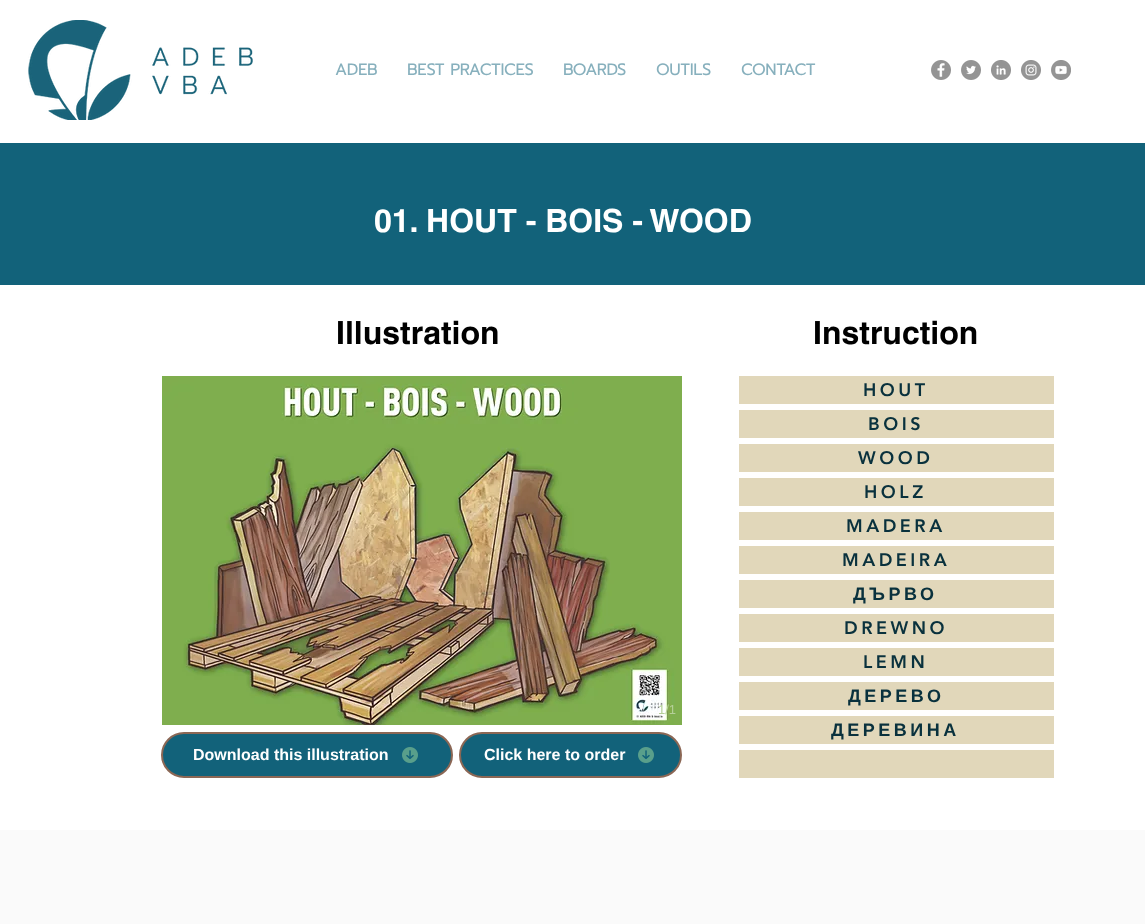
<svg xmlns="http://www.w3.org/2000/svg" width="1145" height="924">
	<defs>
		<clipPath id="clip1"><rect x="848" y="685" width="97" height="22" /></clipPath>
	</defs>
	<rect width="100%" height="100%" fill="#FFFFFF" />
	<image x="28" y="20" width="225" height="100" href="assets/img1.png" />
	<image x="931" y="60" width="20" height="20" href="assets/img2.png" />
	<image x="961" y="60" width="20" height="20" href="assets/img3.png" />
	<image x="991" y="60" width="20" height="20" href="assets/img4.png" />
	<image x="1021" y="60" width="20" height="20" href="assets/img5.png" />
	<image x="1051" y="60" width="20" height="20" href="assets/img6.png" />
	<g font-family="Prompt" font-size="16" font-weight="700" fill="#87B0BD">
		<text x="335" y="75">ADEB</text>
		<text x="407" y="75">BEST PRACTICES</text>
		<text x="563" y="75">BOARDS</text>
		<text x="656" y="75">OUTILS</text>
		<text x="741" y="75">CONTACT</text>
	</g>
	<rect x="0" y="143" width="1145" height="142" fill="#12627A" />
	<text x="374" y="232" font-family="helvetica" font-size="32" font-weight="700" fill="#FFFFFF">01. HOUT - BOIS - WOOD</text>
	<g font-family="helvetica" font-size="32" font-weight="700" fill="#000000">
		<text x="336" y="344">Illustration</text>
		<text x="813" y="344">Instruction</text>
	</g>
	<rect x="739" y="376" width="315" height="28" fill="#E1D7BA" />
	<text x="863" y="396" font-family="'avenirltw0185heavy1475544'" font-size="18" font-weight="900" letter-spacing="3.5" fill="#09313D">HOUT</text>
	<rect x="739" y="410" width="315" height="28" fill="#E1D7BA" />
	<text x="868" y="430" font-family="'avenirltw0185heavy1475544'" font-size="18" font-weight="900" letter-spacing="3.5" fill="#09313D">BOIS</text>
	<rect x="739" y="444" width="315" height="28" fill="#E1D7BA" />
	<text x="858" y="464" font-family="'avenirltw0185heavy1475544'" font-size="18" font-weight="900" letter-spacing="3.5" fill="#09313D">WOOD</text>
	<rect x="739" y="478" width="315" height="28" fill="#E1D7BA" />
	<text x="864" y="498" font-family="'avenirltw0185heavy1475544'" font-size="18" font-weight="900" letter-spacing="3.5" fill="#09313D">HOLZ</text>
	<rect x="739" y="512" width="315" height="28" fill="#E1D7BA" />
	<text x="846" y="532" font-family="'avenirltw0185heavy1475544'" font-size="18" font-weight="900" letter-spacing="3.5" fill="#09313D">MADERA</text>
	<rect x="739" y="546" width="315" height="28" fill="#E1D7BA" />
	<text x="842" y="566" font-family="'avenirltw0185heavy1475544'" font-size="18" font-weight="900" letter-spacing="3.5" fill="#09313D">MADEIRA</text>
	<rect x="739" y="580" width="315" height="28" fill="#E1D7BA" />
	<text x="853" y="600" font-family="Liberation Sans" font-size="18" font-weight="700" letter-spacing="3.5" fill="#09313D">ДЪРВО</text>
	<rect x="739" y="614" width="315" height="28" fill="#E1D7BA" />
	<text x="844" y="634" font-family="'avenirltw0185heavy1475544'" font-size="18" font-weight="900" letter-spacing="3.5" fill="#09313D">DREWNO</text>
	<rect x="739" y="648" width="315" height="28" fill="#E1D7BA" />
	<text x="863" y="668" font-family="'avenirltw0185heavy1475544'" font-size="18" font-weight="900" letter-spacing="3.5" fill="#09313D">LEMN</text>
	<rect x="739" y="682" width="315" height="28" fill="#E1D7BA" />
	<g clip-path="url(#clip1)">
		<text x="848" y="702" font-family="Liberation Sans" font-size="18" font-weight="700" letter-spacing="3.5" fill="#09313D">ДЕРЕВО</text>
	</g>
	<image x="162" y="376" width="520" height="349" href="assets/img7.png" />
	<text x="658" y="714" font-family="Liberation Sans" font-size="13" fill="#B5CF98">1/1</text>
	<rect x="739" y="716" width="315" height="28" fill="#E1D7BA" />
	<text x="831" y="736" font-family="Liberation Sans" font-size="18" font-weight="700" letter-spacing="3.5" fill="#09313D">ДЕРЕВИНА</text>
	<rect x="162" y="733" width="290" height="44" rx="22" fill="#12627A" stroke="#8B6755" stroke-width="2" />
	<text x="193" y="760" font-family="Liberation Sans" font-size="16" font-weight="700" fill="#FFFFFF">Download this illustration</text>
	<image x="402" y="747" width="16" height="16" href="assets/img8.png" />
	<rect x="460" y="733" width="221" height="44" rx="22" fill="#12627A" stroke="#8B6755" stroke-width="2" />
	<text x="484" y="760" font-family="Liberation Sans" font-size="16" font-weight="700" fill="#FFFFFF">Click here to order</text>
	<image x="638" y="747" width="16" height="16" href="assets/img8.png" />
	<rect x="739" y="750" width="315" height="28" fill="#E1D7BA" />
	<rect x="0" y="830" width="1145" height="94" fill="#FAFAFA" />
</svg>
